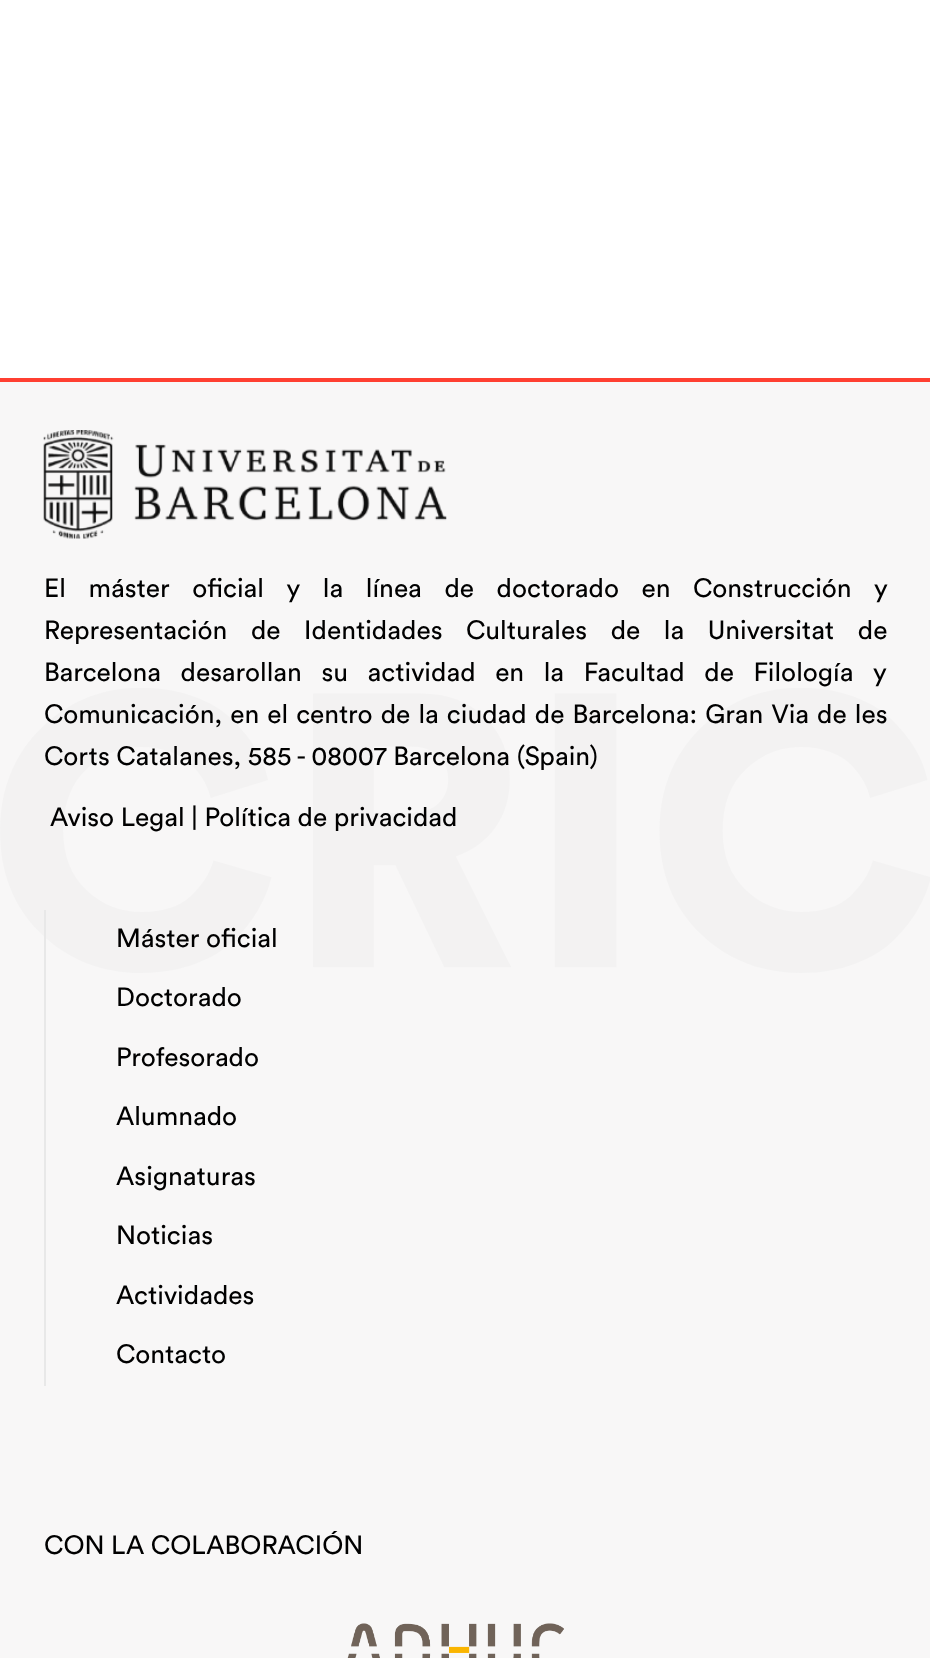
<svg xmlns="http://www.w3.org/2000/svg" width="930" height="1658">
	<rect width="100%" height="100%" fill="#FFFFFF" />
	<rect x="0" y="382" width="930" height="1276" fill="#F8F7F7" />
	<rect x="0" y="378" width="930" height="4" fill="#FF3F31" />
	<image x="43" y="430" width="404" height="109" href="assets/img1.png" />
	<g font-family="Circular" font-size="26.25" fill="#000000">
		<text x="44" y="597" word-spacing="16">El máster oficial y la línea de doctorado en Construcción y</text>
		<text x="44" y="639" word-spacing="17">Representación de Identidades Culturales de la Universitat de</text>
		<text x="44" y="681" word-spacing="13">Barcelona desarollan su actividad en la Facultad de Filología y</text>
	</g>
	<image x="0" y="688" width="930" height="285" href="assets/img3.png" />
	<g font-family="Circular" font-size="26.25" fill="#000000">
		<text x="44" y="723" word-spacing="1.5">Comunicación, en el centro de la ciudad de Barcelona: Gran Via de les</text>
		<text x="44" y="765">Corts Catalanes, 585 - 08007 Barcelona (Spain)</text>
		<text x="50" y="826">Aviso Legal | Política de privacidad</text>
	</g>
	<rect x="44" y="910" width="2" height="476" fill="#E8E8E8" />
	<g font-family="Circular" font-size="26.25" fill="#000000">
		<text x="116" y="947">Máster oficial</text>
		<text x="116" y="1006">Doctorado</text>
		<text x="116" y="1066">Profesorado</text>
		<text x="116" y="1125">Alumnado</text>
		<text x="116" y="1185">Asignaturas</text>
		<text x="116" y="1244">Noticias</text>
		<text x="116" y="1304">Actividades</text>
		<text x="116" y="1363">Contacto</text>
		<text x="44" y="1554">CON LA COLABORACIÓN</text>
	</g>
	<image x="347" y="1623" width="217" height="35" href="assets/img2.png" />
</svg>
